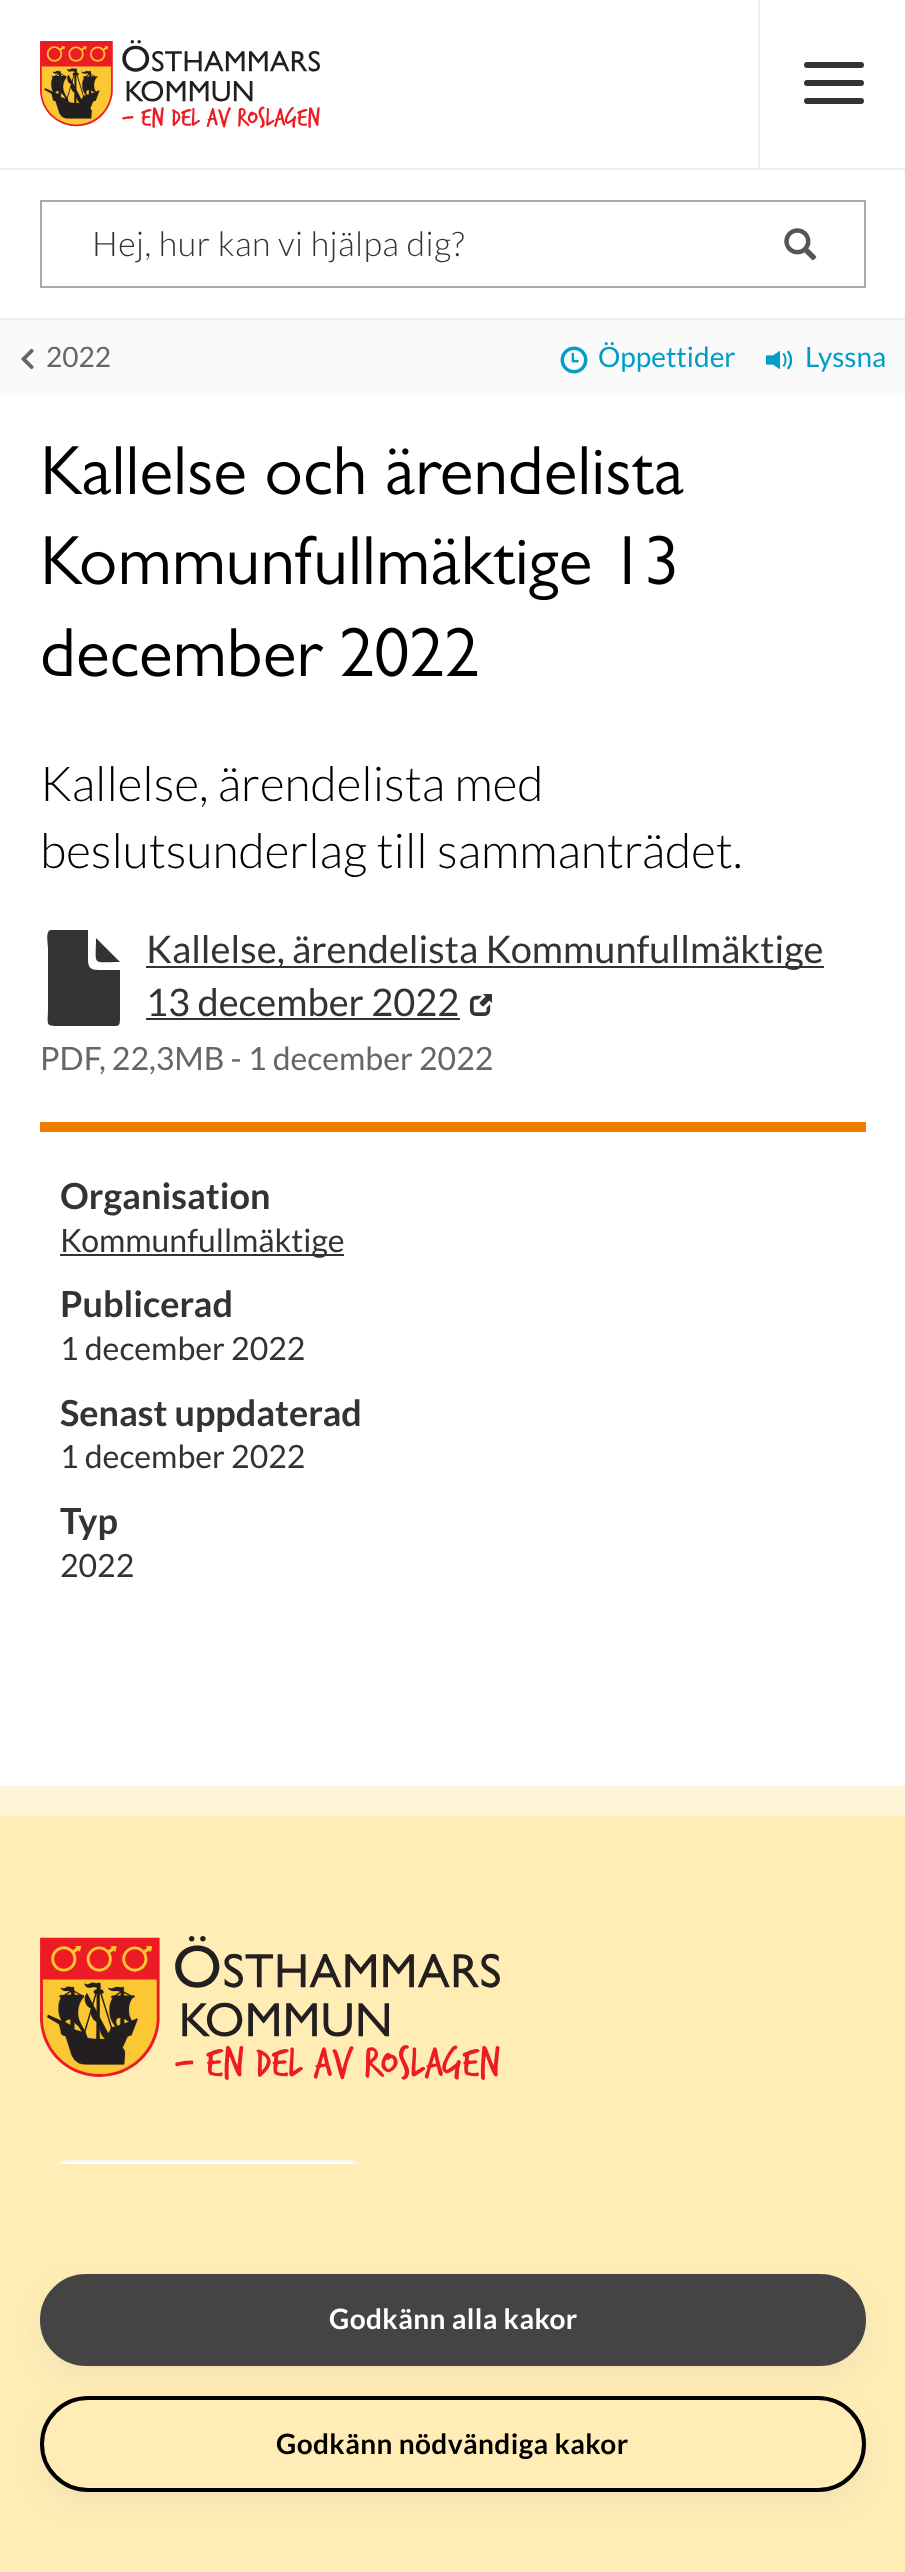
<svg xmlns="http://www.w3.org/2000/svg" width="905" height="2572">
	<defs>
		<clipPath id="clip1"><path d="M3 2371H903V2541H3ZM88 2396H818C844.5 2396 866 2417.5 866 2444C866 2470.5 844.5 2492 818 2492H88C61.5 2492 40 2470.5 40 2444C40 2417.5 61.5 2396 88 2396Z" clip-rule="evenodd" /></clipPath>
	</defs>
	<rect width="100%" height="100%" fill="#FFFFFF" />
	<image x="40" y="40" width="280" height="88" href="assets/img1.png" />
	<rect x="758" y="0" width="2" height="168" fill="#EEEEEE" />
	<rect x="804" y="62" width="60" height="6" rx="3" fill="#333333" />
	<rect x="804" y="80" width="60" height="6" rx="3" fill="#333333" />
	<rect x="804" y="98" width="60" height="6" rx="3" fill="#333333" />
	<rect x="0" y="168" width="905" height="2" fill="#EEEEEE" />
	<rect x="0" y="318" width="905" height="2" fill="#EEEEEE" />
	<rect x="41" y="201" width="824" height="86" fill="none" stroke="#AAAAAA" stroke-width="2" />
	<text x="92" y="256" font-family="Lato" font-size="34" font-weight="300" letter-spacing="0.5" fill="#333333">Hej, hur kan vi hjälpa dig?</text>
	<image x="784" y="228" width="33" height="33" href="assets/img2.png" />
	<rect x="0" y="320" width="905" height="76" fill="#FAFAFA" />
	<image x="21" y="348" width="13" height="22" href="assets/img3.png" />
	<text x="46" y="367" font-family="Lato" font-size="28" fill="#666666">2022</text>
	<image x="560" y="346" width="28" height="28" href="assets/img4.png" />
	<text x="598" y="367" font-family="Lato" font-size="28" fill="#009DC5">Öppettider</text>
	<image x="766" y="350" width="27" height="20" href="assets/img5.png" />
	<text x="805" y="367" font-family="Lato" font-size="28" fill="#009DC5">Lyssna</text>
	<image x="45" y="446" width="639" height="49" href="assets/img6.png" />
	<image x="45" y="535" width="630" height="66" href="assets/img7.png" />
	<image x="42" y="627" width="436" height="50" href="assets/img8.png" />
	<g font-family="Lato" font-size="48" font-weight="300" fill="#000000">
		<text x="40" y="801">Kallelse, ärendelista med</text>
		<text x="40" y="868">beslutsunderlag till sammanträdet.</text>
	</g>
	<path d="M88 930V957C88 967 89 970 100 970H120V1013C120 1028 121 1026 105 1026H63C44 1026 48 1027 48 1007V949C48 943 45 931 51 930ZM120 962C91 962 96 967 96 938Z" fill="#333333" />
	<rect x="146" y="966" width="678" height="2" fill="#333333" />
	<g font-family="Lato" font-size="38" fill="#333333">
		<text x="146" y="963">Kallelse, ärendelista Kommunfullmäktige</text>
		<text x="146" y="1016">13 december 2022</text>
	</g>
	<rect x="146" y="1018" width="314" height="2" fill="#333333" />
	<image x="470" y="994" width="22" height="22" href="assets/img9.png" />
	<text x="40" y="1070" font-family="Lato" font-size="32" fill="#666666">PDF, 22,3MB - 1 december 2022</text>
	<rect x="40" y="1122" width="826" height="10" fill="#EF7D00" />
	<text x="60" y="1209" font-family="Lato" font-size="36" font-weight="700" fill="#333333">Organisation</text>
	<rect x="60" y="1254" width="284" height="2" fill="#333333" />
	<text x="60" y="1252" font-family="Lato" font-size="32" fill="#333333">Kommunfullmäktige</text>
	<text x="60" y="1317" font-family="Lato" font-size="36" font-weight="700" fill="#333333">Publicerad</text>
	<text x="60" y="1360" font-family="Lato" font-size="32" fill="#333333">1 december 2022</text>
	<text x="60" y="1426" font-family="Lato" font-size="36" font-weight="700" fill="#333333">Senast uppdaterad</text>
	<text x="60" y="1468" font-family="Lato" font-size="32" fill="#333333">1 december 2022</text>
	<text x="60" y="1534" font-family="Lato" font-size="36" font-weight="700" fill="#333333">Typ</text>
	<text x="60" y="1577" font-family="Lato" font-size="32" fill="#333333">2022</text>
	<rect x="0" y="1816" width="905" height="348" fill="#FFEDB5" />
	<rect x="0" y="1786" width="905" height="30" fill="#FFF6DA" />
	<image x="40" y="1936" width="460" height="144" href="assets/img10.png" />
	<rect x="41" y="2161" width="336" height="62" rx="31" fill="#FFFFFF" stroke="#F7F7F7" stroke-width="2" />
	<rect x="0" y="2164" width="905" height="408" fill="#FFEDB5" />
	<rect x="40" y="2286" width="826" height="92" rx="46" fill="#BBBBBB" fill-opacity="0.19" filter="blur(12px)" />
	<rect x="41" y="2275" width="824" height="90" rx="45" fill="#444444" stroke="#444444" stroke-width="2" />
	<text x="329" y="2329" font-family="Lato" font-size="28" font-weight="700" letter-spacing="0.4" fill="#FFFFFF">Godkänn alla kakor</text>
	<g clip-path="url(#clip1)">
		<rect x="40" y="2408" width="826" height="96" rx="48" fill="#BBBBBB" fill-opacity="0.19" filter="blur(12px)" />
	</g>
	<rect x="42" y="2398" width="822" height="92" rx="46" fill="none" stroke="#000000" stroke-width="4" />
	<text x="276" y="2454" font-family="Lato" font-size="28" font-weight="700" letter-spacing="0.4" fill="#000000">Godkänn nödvändiga kakor</text>
</svg>
